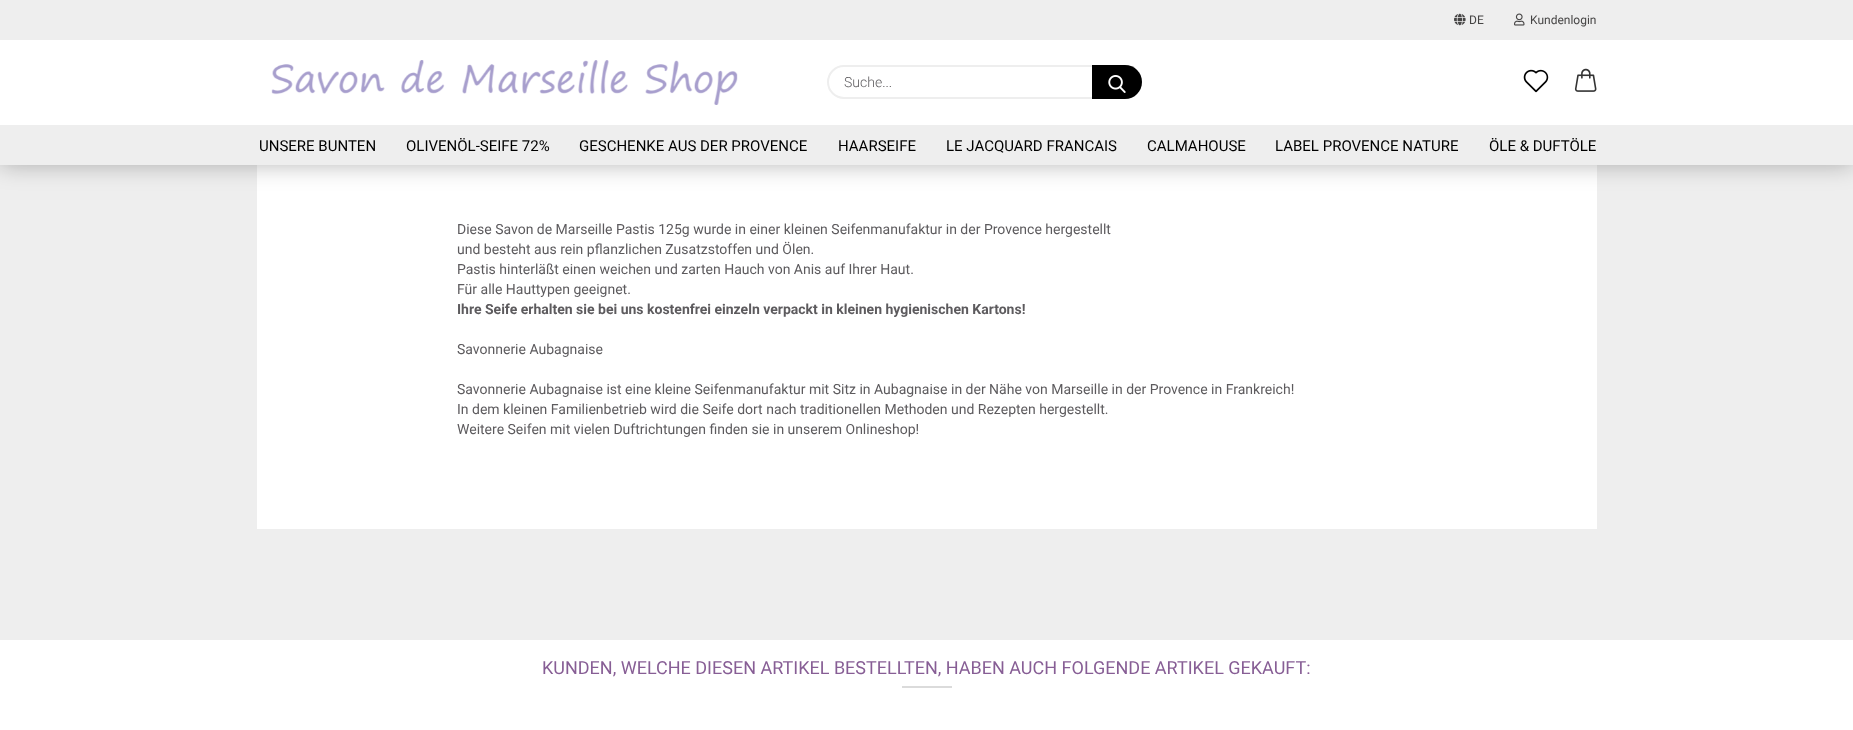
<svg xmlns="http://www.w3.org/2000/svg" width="1853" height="730">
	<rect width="100%" height="100%" fill="#FFFFFF" />
	<rect x="0" y="165" width="1853" height="475" fill="#EEEEEE" />
	<rect x="257" y="165" width="1340" height="364" fill="#FFFFFF" />
	<rect x="0" y="0" width="1853" height="164" fill="#000000" fill-opacity="0.3" filter="blur(12.5px)" />
	<rect x="0" y="40" width="1853" height="85" fill="#FFFFFF" />
	<rect x="0" y="0" width="1853" height="40" fill="#EEEEEE" />
	<image x="1454" y="13" width="12" height="13" href="assets/img1.png" />
	<text x="1469" y="24" font-family="Roboto" font-size="12" fill="#464545">DE</text>
	<image x="1514" y="13" width="11" height="13" href="assets/img2.png" />
	<text x="1530" y="24" font-family="Roboto" font-size="12" fill="#464545">Kundenlogin</text>
	<image x="271" y="60" width="467" height="45" href="assets/img3.png" />
	<rect x="828" y="66" width="311" height="32" rx="16" fill="none" stroke="#EEEEEE" stroke-width="2" />
	<text x="844" y="87" font-family="Roboto" font-size="14" font-weight="300" fill="#5D5B5E">Suche...</text>
	<path d="M1092 65H1125C1134.5 65 1142 72.5 1142 82C1142 91.5 1134.5 99 1125 99H1092Z" fill="#000000" />
	<image x="1108" y="75" width="18" height="18" href="assets/img4.png" />
	<image x="1523" y="69" width="26" height="24" href="assets/img5.png" />
	<image x="1574" y="68" width="23" height="24" href="assets/img6.png" />
	<rect x="0" y="125" width="1853" height="40" fill="#EEEEEE" />
	<g font-family="Roboto" font-size="15" fill="#000000">
		<text x="259" y="151">UNSERE BUNTEN</text>
		<text x="406" y="151">OLIVENÖL-SEIFE 72%</text>
		<text x="579" y="151">GESCHENKE AUS DER PROVENCE</text>
		<text x="838" y="151">HAARSEIFE</text>
		<text x="946" y="151">LE JACQUARD FRANCAIS</text>
		<text x="1147" y="151">CALMAHOUSE</text>
		<text x="1275" y="151">LABEL PROVENCE NATURE</text>
		<text x="1489" y="151">ÖLE &amp; DUFTÖLE</text>
	</g>
	<g font-family="Roboto" font-size="14" fill="#5D5B5E">
		<text x="457" y="234">Diese Savon de Marseille Pastis 125g wurde in einer kleinen Seifenmanufaktur in der Provence hergestellt</text>
		<text x="457" y="254">und besteht aus rein pflanzlichen Zusatzstoffen und Ölen.</text>
		<text x="457" y="274">Pastis hinterläßt einen weichen und zarten Hauch von Anis auf Ihrer Haut.</text>
		<text x="457" y="294">Für alle Hauttypen geeignet.</text>
	</g>
	<text x="457" y="314" font-family="Roboto" font-size="14" font-weight="700" fill="#5D5B5E">Ihre Seife erhalten sie bei uns kostenfrei einzeln verpackt in kleinen hygienischen Kartons!</text>
	<g font-family="Roboto" font-size="14" fill="#5D5B5E">
		<text x="457" y="354">Savonnerie Aubagnaise</text>
		<text x="457" y="394">Savonnerie Aubagnaise ist eine kleine Seifenmanufaktur mit Sitz in Aubagnaise in der Nähe von Marseille in der Provence in Frankreich!</text>
		<text x="457" y="414">In dem kleinen Familienbetrieb wird die Seife dort nach traditionellen Methoden und Rezepten hergestellt.</text>
		<text x="457" y="434">Weitere Seifen mit vielen Duftrichtungen finden sie in unserem Onlineshop!</text>
	</g>
	<text x="542" y="674" font-family="Roboto" font-size="18" fill="#875E95">KUNDEN, WELCHE DIESEN ARTIKEL BESTELLTEN, HABEN AUCH FOLGENDE ARTIKEL GEKAUFT:</text>
	<rect x="902" y="686" width="50" height="2" fill="#DBDBDB" />
</svg>
